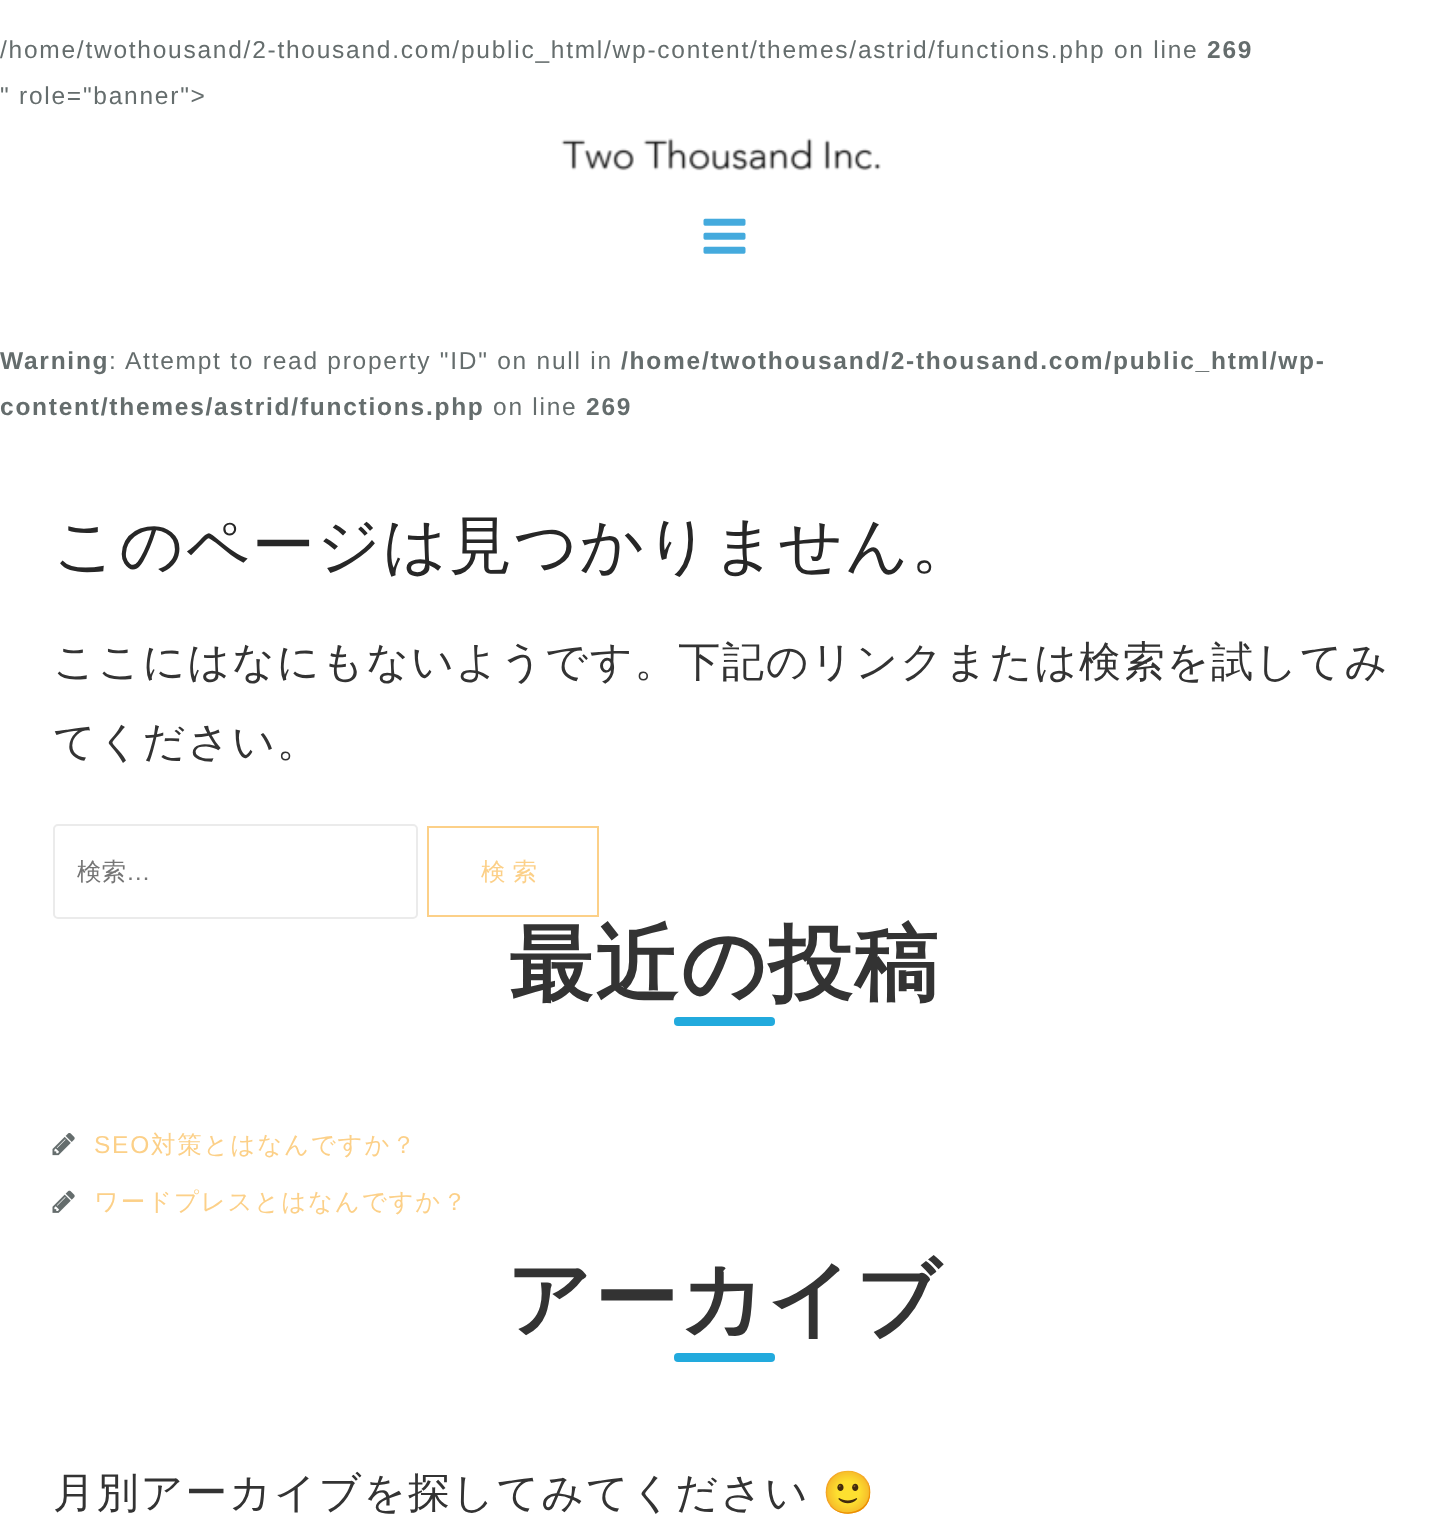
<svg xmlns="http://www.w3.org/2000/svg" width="1449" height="1534">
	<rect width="100%" height="100%" fill="#FFFFFF" />
	<text x="0" y="58" font-family="Liberation Sans" font-size="24.5" letter-spacing="1.75" fill="#656D6D">/home/twothousand/2-thousand.com/public_html/wp-content/themes/astrid/functions.php on line</text>
	<text x="1207" y="58" font-family="Liberation Sans" font-size="24.5" font-weight="700" letter-spacing="1.75" fill="#656D6D">269</text>
	<text x="0" y="104" font-family="Liberation Sans" font-size="24.5" letter-spacing="1.75" fill="#656D6D">" role="banner"&gt;</text>
	<image x="561" y="138" width="320" height="33" href="assets/img1.png" />
	<image x="703" y="218" width="43" height="36" href="assets/img2.png" />
	<text x="0" y="369" font-family="Liberation Sans" font-size="24.5" font-weight="700" letter-spacing="1.75" fill="#656D6D">Warning</text>
	<g font-family="Liberation Sans" font-size="24.5" letter-spacing="1.75" fill="#656D6D">
		<text x="109" y="369">:</text>
		<text x="125" y="369">Attempt to read property "ID" on null in</text>
	</g>
	<g font-family="Liberation Sans" font-size="24.5" font-weight="700" letter-spacing="1.75" fill="#656D6D">
		<text x="621" y="369">/home/twothousand/2-thousand.com/public_html/wp-</text>
		<text x="0" y="415">content/themes/astrid/functions.php</text>
	</g>
	<text x="493" y="415" font-family="Liberation Sans" font-size="24.5" letter-spacing="1.75" fill="#656D6D">on line</text>
	<text x="586" y="415" font-family="Liberation Sans" font-size="24.5" font-weight="700" letter-spacing="1.75" fill="#656D6D">269</text>
	<text x="53" y="567" font-family="WenQuanYi Zen Hei" font-size="63" font-weight="500" letter-spacing="1.75" fill="#272727">このページは見つかりません。</text>
	<g font-family="WenQuanYi Zen Hei" font-size="42" font-weight="500" letter-spacing="1.75" fill="#333333">
		<text x="53" y="676">ここにはなにもないようです。下記のリンクまたは検索を試してみ</text>
		<text x="53" y="756">てください。</text>
	</g>
	<rect x="54" y="825" width="363" height="93" rx="4" fill="none" stroke="#EBEBEB" stroke-width="2" />
	<text x="77" y="880" font-family="WenQuanYi Zen Hei" font-size="24.5" font-weight="500" fill="#757575">検索</text>
	<text x="126" y="880" font-family="Liberation Sans" font-size="24.5" fill="#757575">…</text>
	<rect x="428" y="827" width="170" height="89" fill="none" stroke="#FCD088" stroke-width="2" />
	<text x="481" y="880" font-family="WenQuanYi Zen Hei" font-size="24.5" font-weight="500" letter-spacing="7" fill="#FCD088">検索</text>
	<text x="509" y="993" font-family="WenQuanYi Zen Hei" font-size="84" font-weight="700" letter-spacing="1.75" fill="#333333">最近の投稿</text>
	<rect x="674" y="1017" width="101" height="9" rx="4" fill="#22AADD" />
	<image x="52" y="1133" width="23" height="23" href="assets/img3.png" />
	<text x="94" y="1153" font-family="Liberation Sans" font-size="24.5" letter-spacing="1.75" fill="#FCD088">SEO</text>
	<text x="151" y="1153" font-family="WenQuanYi Zen Hei" font-size="24.5" font-weight="500" letter-spacing="1.75" fill="#FCD088">対策とはなんですか？</text>
	<image x="52" y="1190" width="23" height="23" href="assets/img4.png" />
	<text x="94" y="1210" font-family="WenQuanYi Zen Hei" font-size="24.5" font-weight="500" letter-spacing="1.75" fill="#FCD088">ワードプレスとはなんですか？</text>
	<text x="506" y="1328" font-family="WenQuanYi Zen Hei" font-size="84" font-weight="700" letter-spacing="1.75" fill="#333333">アーカイブ</text>
	<rect x="674" y="1353" width="101" height="9" rx="4" fill="#22AADD" />
	<text x="53" y="1507" font-family="WenQuanYi Zen Hei" font-size="42" font-weight="500" letter-spacing="1.75" fill="#333333">月別アーカイブを探してみてください</text>
	<text x="822" y="1507" font-family="Noto Color Emoji" font-size="42" letter-spacing="1.75" fill="#333333">🙂</text>
</svg>
